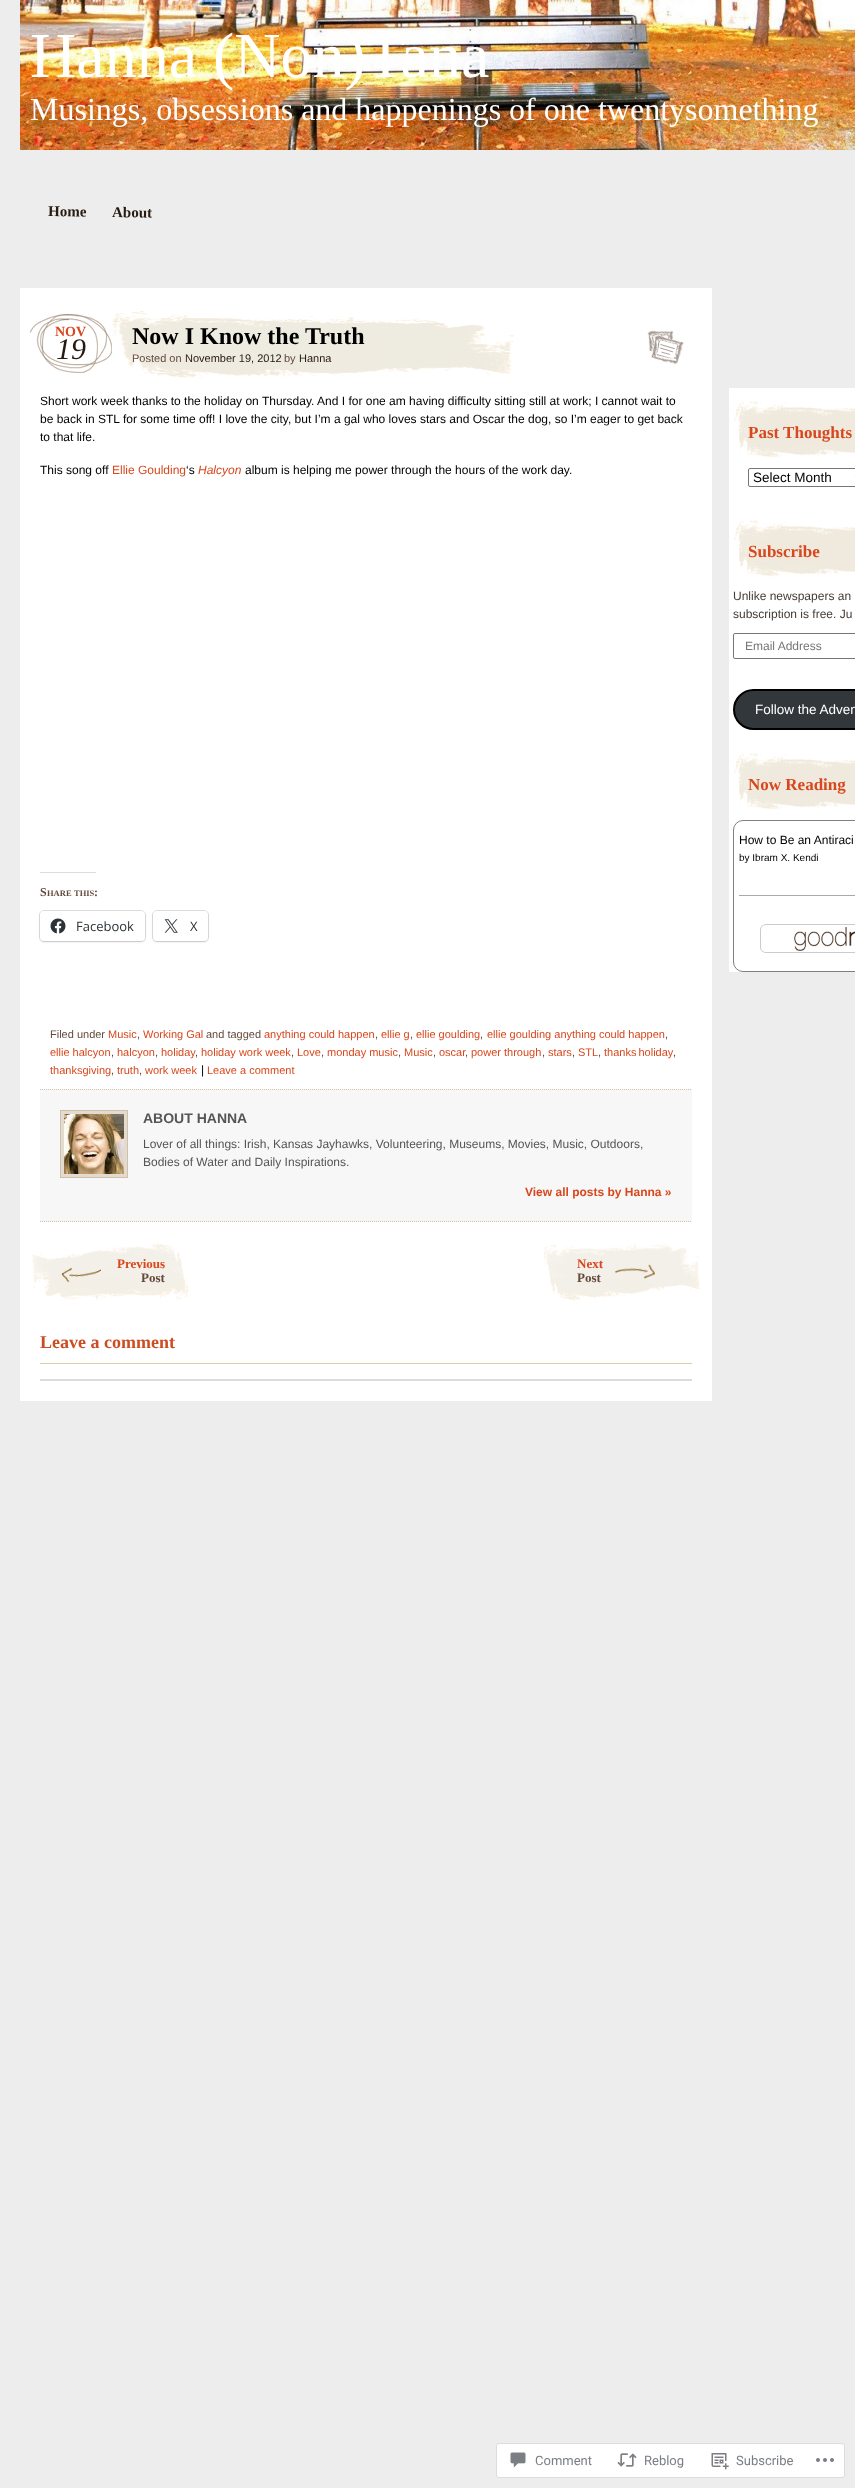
<svg xmlns="http://www.w3.org/2000/svg" width="855" height="2488">
	<rect width="100%" height="100%" fill="#EDEDED" />
	<image x="20" y="0" width="835" height="150" href="assets/img1.png" />
	<text x="30" y="77" font-family="Liberation Serif" font-size="64" fill="#FFFFFF">Hanna (Non)Tana</text>
	<text x="30" y="120" font-family="Liberation Serif" font-size="32" fill="#FFFFFF">Musings, obsessions and happenings of one twentysomething</text>
	<g font-family="Liberation Serif" font-size="15" font-weight="700" fill="#261A11">
		<text x="48" y="216" transform="rotate(1 48 216)">Home</text>
		<text x="112" y="217" transform="rotate(1 112 217)">About</text>
	</g>
	<rect x="20" y="288" width="692" height="1113" fill="#FFFFFF" />
	<image x="30" y="314" width="82" height="59" href="assets/img2.png" />
	<text x="55" y="336" font-family="Liberation Serif" font-size="14" font-weight="700" fill="#D8471D">NOV</text>
	<text x="56" y="359" font-family="Liberation Serif" font-size="30" font-style="italic" fill="#261A11">19</text>
	<image x="112" y="311" width="402" height="68" href="assets/img3.png" />
	<text x="132" y="344" font-family="Liberation Serif" font-size="24" font-weight="700" fill="#000000">Now I Know the Truth</text>
	<text x="132" y="362" font-family="Liberation Sans" font-size="11" fill="#644A3D">Posted on</text>
	<text x="185" y="362" font-family="Liberation Sans" font-size="11" fill="#261A11">November 19, 2012</text>
	<text x="284" y="362" font-family="Liberation Sans" font-size="11" fill="#644A3D">by</text>
	<text x="299" y="362" font-family="Liberation Sans" font-size="11" fill="#261A11">Hanna</text>
	<image x="647" y="330" width="37" height="35" href="assets/img4.png" />
	<g font-family="Liberation Sans" font-size="12" fill="#000000">
		<text x="40" y="405">Short work week thanks to the holiday on Thursday. And I for one am having difficulty sitting still at work; I cannot wait to</text>
		<text x="40" y="423">be back in STL for some time off! I love the city, but I’m a gal who loves stars and Oscar the dog, so I’m eager to get back</text>
		<text x="40" y="441">to that life.</text>
		<text x="40" y="474">This song off</text>
	</g>
	<text x="112" y="474" font-family="Liberation Sans" font-size="12" fill="#D8471D">Ellie Goulding</text>
	<text x="186" y="474" font-family="Liberation Sans" font-size="12" fill="#000000">‘s</text>
	<text x="198" y="474" font-family="Liberation Sans" font-size="12" font-style="italic" fill="#D8471D">Halcyon</text>
	<text x="245" y="474" font-family="Liberation Sans" font-size="12" fill="#000000">album is helping me power through the hours of the work day.</text>
	<rect x="40" y="872" width="56" height="1" fill="#DCDCDE" />
	<text x="40" y="896" font-family="Liberation Serif" font-size="12" font-weight="700" fill="#644A3D">S</text>
	<g font-family="Liberation Serif" font-size="8.5" font-weight="700" fill="#644A3D">
		<text x="47" y="896">HARE</text>
		<text x="74" y="896">THIS</text>
	</g>
	<text x="94" y="896" font-family="Liberation Serif" font-size="12" font-weight="700" fill="#644A3D">:</text>
	<rect x="39.5" y="910.5" width="106" height="31" rx="4.5" fill="none" stroke="#E0E0E0" />
	<rect x="40" y="912" width="105" height="30" rx="4" fill="#000000" fill-opacity="0.12" filter="blur(1px)" />
	<rect x="40" y="911" width="105" height="30" rx="4" fill="#FFFFFF" />
	<image x="50" y="918" width="16" height="16" href="assets/img5.png" />
	<text x="76" y="931" font-family="Open Sans" font-size="13" fill="#2C3338">Facebook</text>
	<rect x="152.5" y="910.5" width="56" height="31" rx="4.5" fill="none" stroke="#E0E0E0" />
	<rect x="153" y="912" width="55" height="30" rx="4" fill="#000000" fill-opacity="0.12" filter="blur(1px)" />
	<rect x="153" y="911" width="55" height="30" rx="4" fill="#FFFFFF" />
	<image x="164" y="919" width="14" height="14" href="assets/img6.png" />
	<text x="190" y="931" font-family="Open Sans" font-size="13" fill="#2C3338">X</text>
	<text x="50" y="1038" font-family="Liberation Sans" font-size="11" fill="#644A3D">Filed under</text>
	<text x="108" y="1038" font-family="Liberation Sans" font-size="11" fill="#D8471D">Music</text>
	<text x="137" y="1038" font-family="Liberation Sans" font-size="11" fill="#644A3D">,</text>
	<text x="143" y="1038" font-family="Liberation Sans" font-size="11" fill="#D8471D">Working Gal</text>
	<text x="206" y="1038" font-family="Liberation Sans" font-size="11" fill="#644A3D">and tagged</text>
	<text x="264" y="1038" font-family="Liberation Sans" font-size="11" fill="#D8471D">anything could happen</text>
	<text x="375" y="1038" font-family="Liberation Sans" font-size="11" fill="#644A3D">,</text>
	<text x="381" y="1038" font-family="Liberation Sans" font-size="11" fill="#D8471D">ellie g</text>
	<text x="410" y="1038" font-family="Liberation Sans" font-size="11" fill="#644A3D">,</text>
	<text x="416" y="1038" font-family="Liberation Sans" font-size="11" fill="#D8471D">ellie goulding</text>
	<text x="480" y="1038" font-family="Liberation Sans" font-size="11" fill="#644A3D">,</text>
	<text x="487" y="1038" font-family="Liberation Sans" font-size="11" fill="#D8471D">ellie goulding anything could happen</text>
	<text x="665" y="1038" font-family="Liberation Sans" font-size="11" fill="#644A3D">,</text>
	<text x="50" y="1056" font-family="Liberation Sans" font-size="11" fill="#D8471D">ellie halcyon</text>
	<text x="111" y="1056" font-family="Liberation Sans" font-size="11" fill="#644A3D">,</text>
	<text x="117" y="1056" font-family="Liberation Sans" font-size="11" fill="#D8471D">halcyon</text>
	<text x="155" y="1056" font-family="Liberation Sans" font-size="11" fill="#644A3D">,</text>
	<g font-family="Liberation Sans" font-size="11" fill="#D8471D">
		<text x="161" y="1056">holiday</text>
		<text x="201" y="1056">holiday work week</text>
		<text x="297" y="1056">Love</text>
		<text x="327" y="1056">monday music</text>
		<text x="404" y="1056">Music</text>
		<text x="439" y="1056">oscar</text>
		<text x="471" y="1056">power through</text>
		<text x="548" y="1056">stars</text>
		<text x="578" y="1056">STL</text>
		<text x="604" y="1056" word-spacing="-1">thanks holiday</text>
	</g>
	<g font-family="Liberation Sans" font-size="11" fill="#644A3D">
		<text x="195" y="1056">,</text>
		<text x="291" y="1056">,</text>
		<text x="321" y="1056">,</text>
		<text x="398" y="1056">,</text>
		<text x="433" y="1056">,</text>
		<text x="465" y="1056">,</text>
		<text x="542" y="1056">,</text>
		<text x="572" y="1056">,</text>
		<text x="598" y="1056">,</text>
		<text x="673" y="1056">,</text>
	</g>
	<text x="50" y="1074" font-family="Liberation Sans" font-size="11" fill="#D8471D">thanksgiving</text>
	<text x="111" y="1074" font-family="Liberation Sans" font-size="11" fill="#644A3D">,</text>
	<text x="117" y="1074" font-family="Liberation Sans" font-size="11" fill="#D8471D">truth</text>
	<text x="139" y="1074" font-family="Liberation Sans" font-size="11" fill="#644A3D">,</text>
	<text x="145" y="1074" font-family="Liberation Sans" font-size="11" fill="#D8471D">work week</text>
	<text x="201" y="1074" font-family="Liberation Sans" font-size="12" fill="#000000">|</text>
	<text x="207" y="1074" font-family="Liberation Sans" font-size="11" fill="#D8471D">Leave a comment</text>
	<rect x="40" y="1089" width="652" height="133" fill="#F7F7F7" />
	<path d="M40 1089.5H692" fill="none" stroke="#D1BFA6" stroke-dasharray="1 1" />
	<path d="M40 1221.5H692" fill="none" stroke="#D1BFA6" stroke-dasharray="1 1" />
	<rect x="60.5" y="1110.5" width="67" height="67" fill="#E2DBD1" stroke="#D1BFA6" />
	<image x="64" y="1114" width="60" height="60" href="assets/img7.png" />
	<text x="143" y="1123" font-family="Liberation Sans" font-size="14" font-weight="700" fill="#555555">ABOUT HANNA</text>
	<g font-family="Liberation Sans" font-size="12" fill="#555555">
		<text x="143" y="1148">Lover of all things: Irish, Kansas Jayhawks, Volunteering, Museums, Movies, Music, Outdoors,</text>
		<text x="143" y="1166">Bodies of Water and Daily Inspirations.</text>
	</g>
	<text x="525" y="1196" font-family="Liberation Sans" font-size="12" font-weight="700" fill="#D8471D">View all posts by Hanna »</text>
	<image x="32" y="1243" width="157" height="57" href="assets/img8.png" />
	<text x="117" y="1268" font-family="Liberation Serif" font-size="13" font-weight="700" fill="#D8471D">Previous</text>
	<text x="141" y="1282" font-family="Liberation Serif" font-size="13" font-weight="700" fill="#644A3D">Post</text>
	<image x="543" y="1244" width="157" height="57" href="assets/img9.png" />
	<text x="577" y="1268" font-family="Liberation Serif" font-size="13" font-weight="700" fill="#D8471D">Next</text>
	<text x="577" y="1282" font-family="Liberation Serif" font-size="13" font-weight="700" fill="#644A3D">Post</text>
	<rect x="40" y="1363" width="652" height="1" fill="#DACDAB" />
	<text x="40" y="1348" font-family="Liberation Serif" font-size="18" font-weight="700" fill="#CC4D22">Leave a comment</text>
	<rect x="40" y="1379" width="652" height="2" fill="#DCDCDE" />
	<rect x="729" y="388" width="126" height="584" fill="#FFFFFF" />
	<image x="734" y="401" width="121" height="57" href="assets/img10.png" />
	<text x="748" y="438" font-family="Liberation Serif" font-size="17" font-weight="700" fill="#D8471D">Past Thoughts</text>
	<rect x="748.5" y="468.5" width="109" height="18" rx="1.5" fill="none" stroke="#767676" />
	<path d="M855.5 475.5L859.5 479.5L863.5 475.5" fill="none" stroke="#000000" stroke-width="2" />
	<text x="753" y="482" font-family="Liberation Sans" font-size="13.5" fill="#000000">Select Month</text>
	<image x="734" y="520" width="121" height="57" href="assets/img10.png" />
	<text x="748" y="557" font-family="Liberation Serif" font-size="17" font-weight="700" fill="#D8471D">Subscribe</text>
	<g font-family="Liberation Sans" font-size="12" fill="#463B33">
		<text x="733" y="600">Unlike newspapers an</text>
		<text x="733" y="618">subscription is free. Ju</text>
	</g>
	<rect x="733.5" y="633.5" width="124" height="25" rx="1.5" fill="none" stroke="#767676" />
	<text x="745" y="650" font-family="Liberation Sans" font-size="12" fill="#757575">Email Address</text>
	<rect x="734" y="690" width="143" height="39" rx="19.5" fill="#32373C" stroke="#000000" stroke-width="2" />
	<text x="755" y="714" font-family="Liberation Sans" font-size="13.5" fill="#FFFFFF">Follow the Adven</text>
	<image x="734" y="753" width="121" height="57" href="assets/img10.png" />
	<text x="748" y="790" font-family="Liberation Serif" font-size="17" font-weight="700" fill="#D8471D">Now Reading</text>
	<rect x="733.5" y="820.5" width="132" height="151" rx="9.5" fill="none" stroke="#808080" />
	<rect x="739" y="895" width="116" height="1" fill="#A7AAAD" />
	<text x="739" y="844" font-family="Liberation Sans" font-size="12" fill="#000000">How to Be an Antiraci</text>
	<text x="739" y="861" font-family="Liberation Sans" font-size="10" fill="#000000">by Ibram X. Kendi</text>
	<image x="760" y="924" width="95" height="29" href="assets/img11.png" />
	<rect x="496.5" y="2443.5" width="348" height="34" rx="2.5" fill="#FFFFFF" stroke="#DCDCDE" />
	<image x="510" y="2452" width="16" height="16" href="assets/img12.png" />
	<text x="535" y="2465" font-family="Roboto" font-size="13" fill="#7A7E84">Comment</text>
	<image x="617" y="2453" width="20" height="14" href="assets/img13.png" />
	<text x="644" y="2465" font-family="Roboto" font-size="13" fill="#7A7E84">Reblog</text>
	<image x="711" y="2453" width="18" height="17" href="assets/img14.png" />
	<text x="736" y="2465" font-family="Roboto" font-size="13" fill="#7A7E84">Subscribe</text>
	<image x="816" y="2458" width="18" height="4" href="assets/img15.png" />
</svg>
